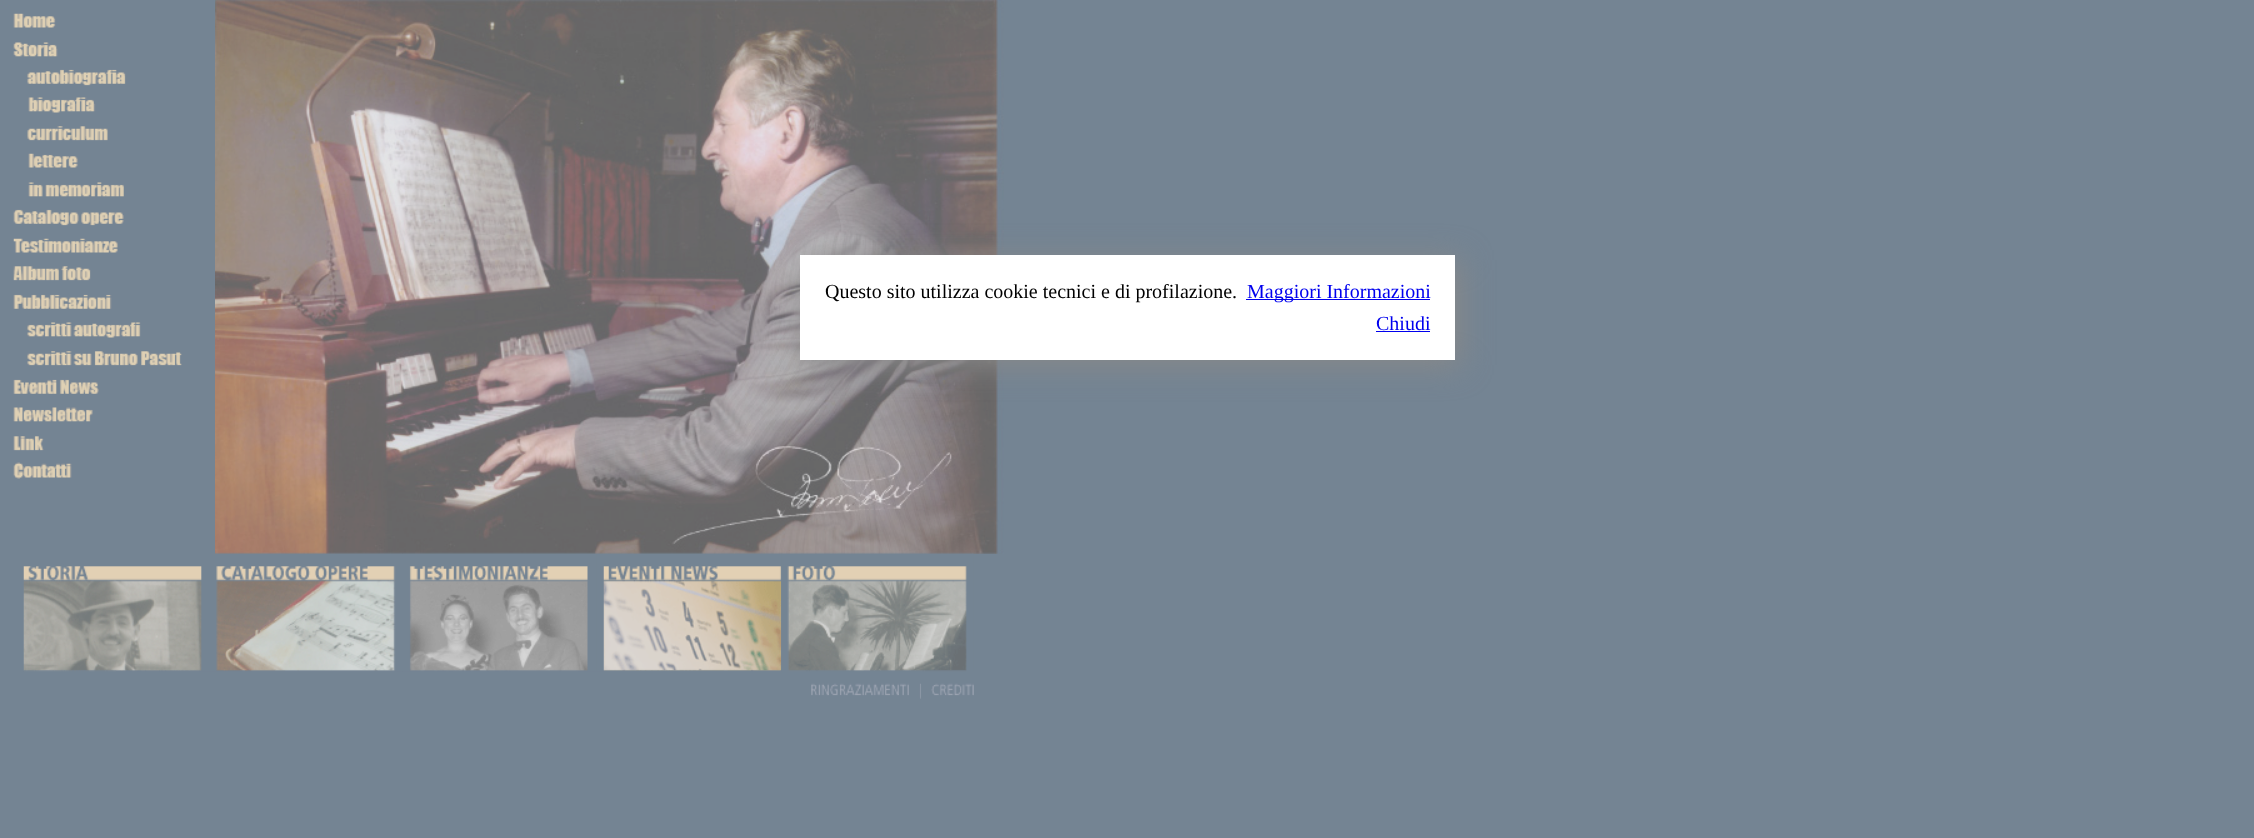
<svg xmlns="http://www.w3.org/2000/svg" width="2254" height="838">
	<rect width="100%" height="100%" fill="#748493" />
	<image x="13" y="13" width="43" height="15" href="assets/img1.png" />
	<image x="13" y="42" width="45" height="15" href="assets/img2.png" />
	<image x="27" y="69" width="99" height="17" href="assets/img3.png" />
	<image x="28" y="97" width="68" height="16" href="assets/img4.png" />
	<image x="27" y="126" width="81" height="15" href="assets/img5.png" />
	<image x="28" y="153" width="50" height="15" href="assets/img6.png" />
	<image x="28" y="182" width="96" height="15" href="assets/img7.png" />
	<image x="13" y="209" width="111" height="17" href="assets/img8.png" />
	<image x="13" y="238" width="105" height="15" href="assets/img9.png" />
	<image x="13" y="266" width="78" height="15" href="assets/img10.png" />
	<image x="13" y="294" width="99" height="15" href="assets/img11.png" />
	<image x="27" y="322" width="114" height="16" href="assets/img12.png" />
	<image x="27" y="351" width="155" height="15" href="assets/img13.png" />
	<image x="13" y="379" width="86" height="15" href="assets/img14.png" />
	<image x="13" y="407" width="80" height="15" href="assets/img15.png" />
	<image x="13" y="436" width="31" height="15" href="assets/img16.png" />
	<image x="13" y="462" width="59" height="17" href="assets/img17.png" />
	<image x="215" y="0" width="789" height="554" href="assets/img18.png" />
	<image x="23" y="566" width="179" height="106" href="assets/img19.png" />
	<image x="215" y="553" width="188" height="119" href="assets/img20.png" />
	<image x="402" y="553" width="194" height="119" href="assets/img21.png" />
	<image x="596" y="553" width="186" height="119" href="assets/img22.png" />
	<image x="781" y="553" width="193" height="119" href="assets/img23.png" />
	<rect x="116" y="671" width="665" height="1" fill="#748393" fill-opacity="0.75" />
	<image x="811" y="671" width="111" height="28" href="assets/img24.png" />
	<image x="921" y="683" width="53" height="16" href="assets/img25.png" />
	<rect x="805" y="260" width="655" height="105" fill="#888888" filter="blur(15.5px)" />
	<rect x="800" y="255" width="655" height="105" fill="#FFFFFF" />
	<text x="825" y="298" font-family="Liberation Serif" font-size="20" fill="#000000">Questo sito utilizza cookie tecnici e di profilazione.</text>
	<rect x="1246" y="299" width="184" height="1" fill="#0000EE" />
	<g font-family="Liberation Serif" font-size="20" fill="#0000EE">
		<text x="1247" y="298">Maggiori Informazioni</text>
		<text x="1376" y="330">Chiudi</text>
	</g>
	<rect x="1376" y="331" width="54" height="1" fill="#0000EE" />
</svg>
